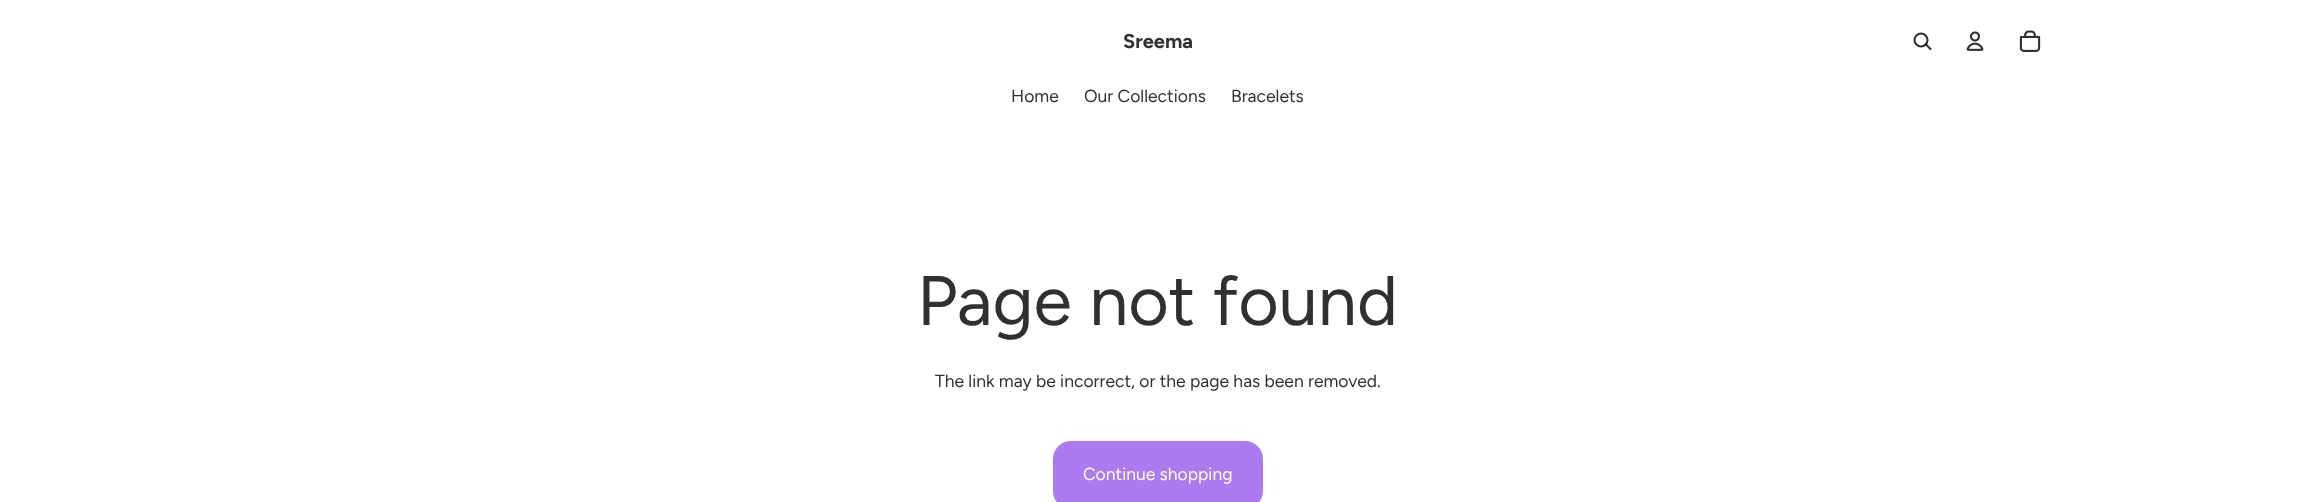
<svg xmlns="http://www.w3.org/2000/svg" width="2315" height="502">
	<rect width="100%" height="100%" fill="#FFFFFF" />
	<text x="1123" y="48" font-family="Figtree" font-size="20" font-weight="700" fill="#303030">Sreema</text>
	<circle cx="1921" cy="40" r="6.5" fill="none" stroke="#303030" stroke-width="2.1" />
	<path d="M1926 44.5L1930.5 49" fill="none" stroke="#000000" stroke-opacity="0.81" stroke-width="2.1" stroke-linecap="round" stroke-linejoin="round" />
	<image x="1966" y="31" width="18" height="20" href="assets/img1.png" />
	<image x="2019" y="30" width="22" height="22" href="assets/img2.png" />
	<g font-family="Figtree" font-size="17.5" fill="#303030">
		<text x="1011" y="102">Home</text>
		<text x="1084" y="102">Our Collections</text>
		<text x="1231" y="102">Bracelets</text>
	</g>
	<text x="917" y="325" font-family="Figtree" font-size="70" fill="#303030">Page not found</text>
	<text x="935" y="387" font-family="Figtree" font-size="17.5" fill="#303030">The link may be incorrect, or the page has been removed.</text>
	<rect x="1053" y="441" width="210" height="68" rx="18" fill="#AC7AF0" />
	<text x="1083" y="480" font-family="Figtree" font-size="17.5" fill="#FFFFFF">Continue shopping</text>
</svg>
